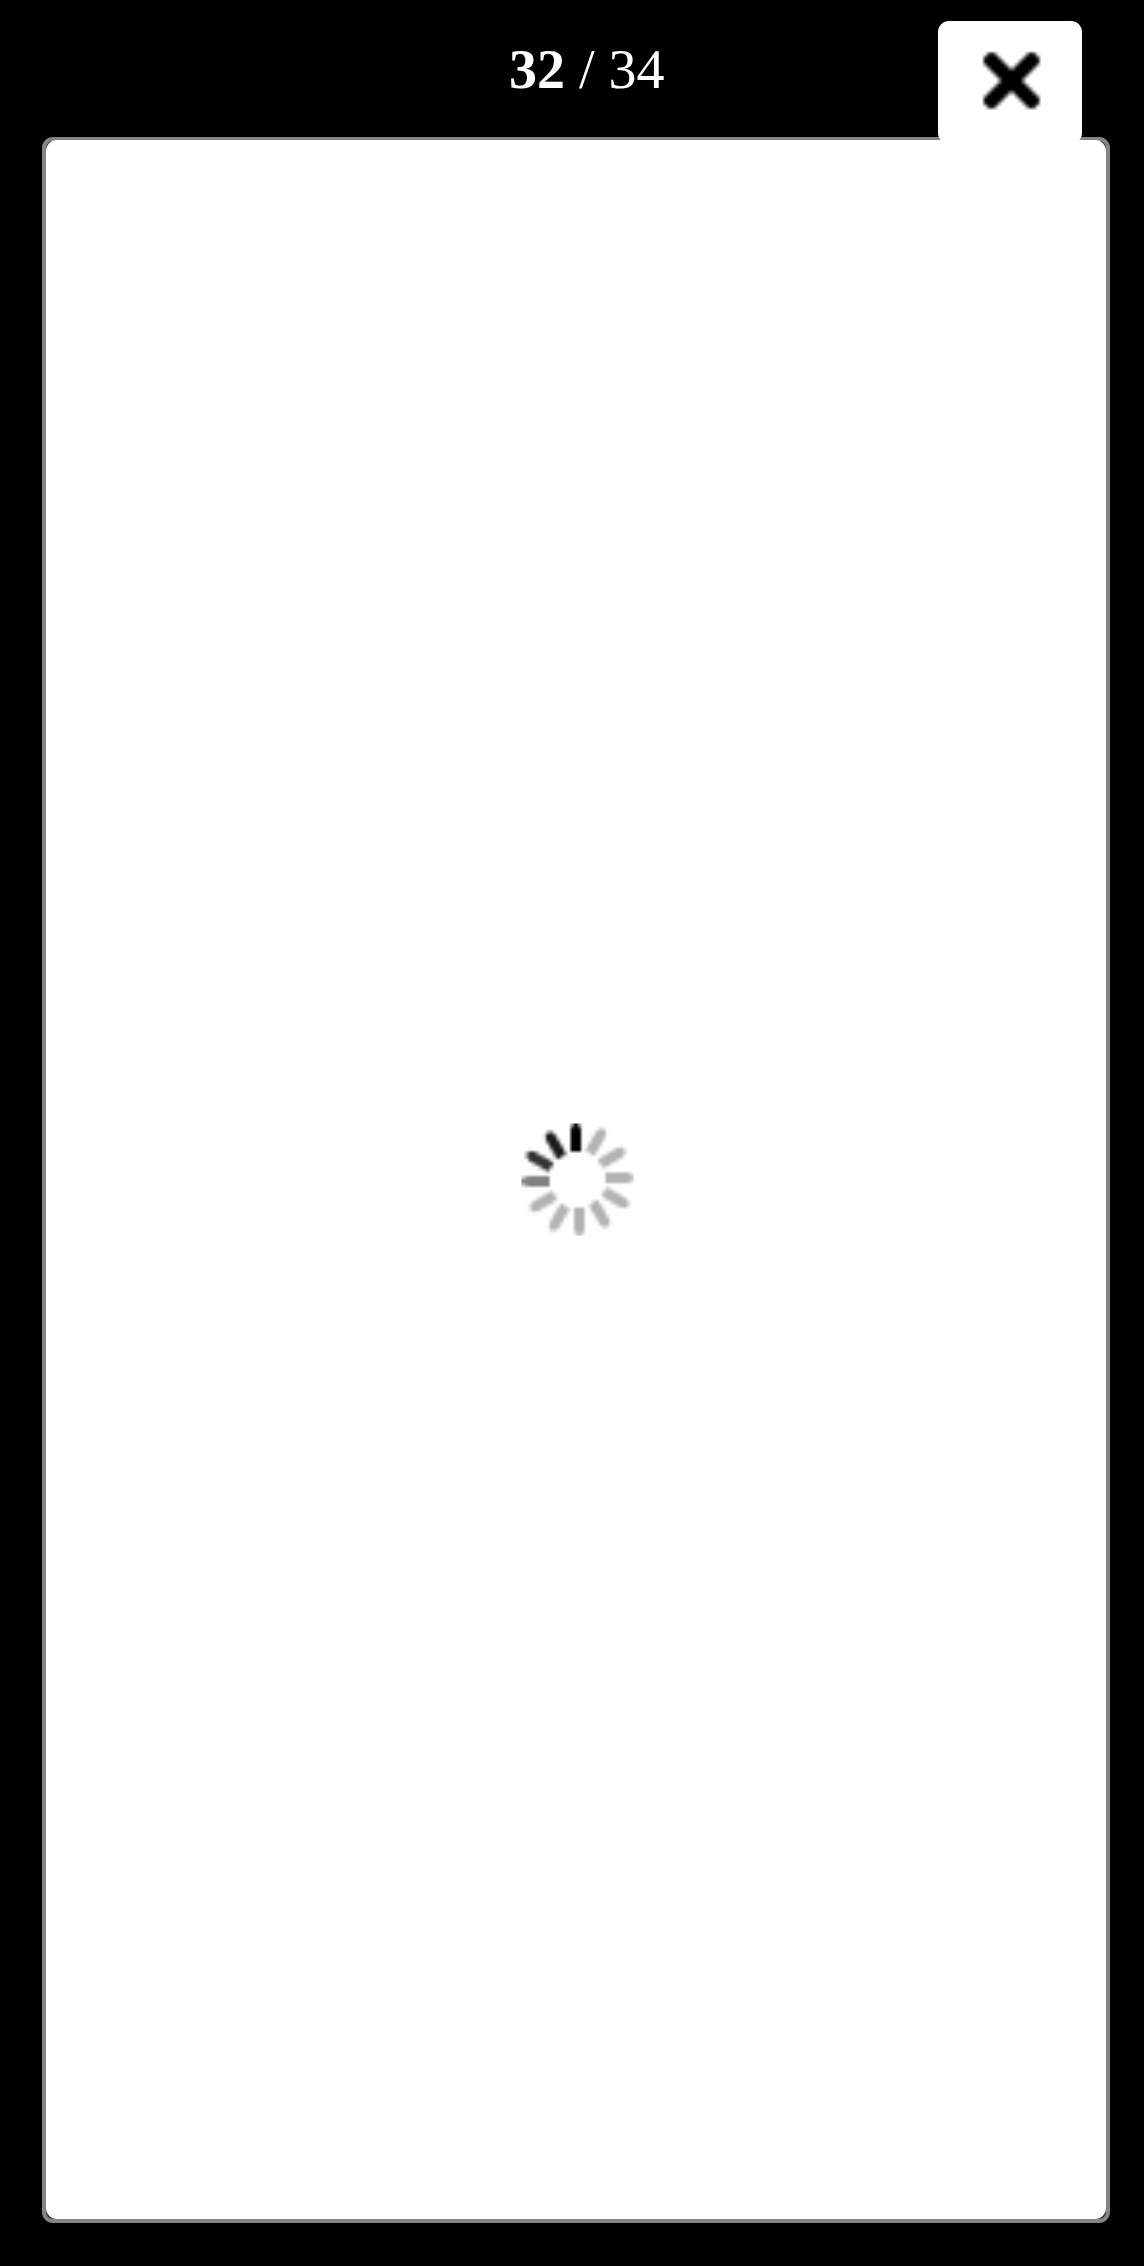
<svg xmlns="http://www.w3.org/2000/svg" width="1144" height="2266">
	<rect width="100%" height="100%" fill="#000000" />
	<rect x="42" y="137" width="1068" height="2086" rx="11" fill="#333333" />
	<rect x="44" y="139" width="1064" height="2082" rx="9" fill="none" stroke="#FFFFFF" stroke-opacity="0.4" stroke-width="4" />
	<rect x="46" y="140" width="1060" height="2079" rx="11" fill="#FFFFFF" />
	<rect x="938" y="21" width="144" height="123" rx="11" fill="#FFFFFF" />
	<image x="982" y="51" width="59" height="59" href="assets/img1.png" />
	<image x="521" y="1123" width="113" height="113" href="assets/img2.png" />
	<text x="509" y="88" font-family="Liberation Serif" font-size="56" font-weight="700" fill="#FFFFFF">32</text>
	<text x="579" y="88" font-family="Liberation Serif" font-size="56" fill="#FFFFFF">/ 34</text>
</svg>
